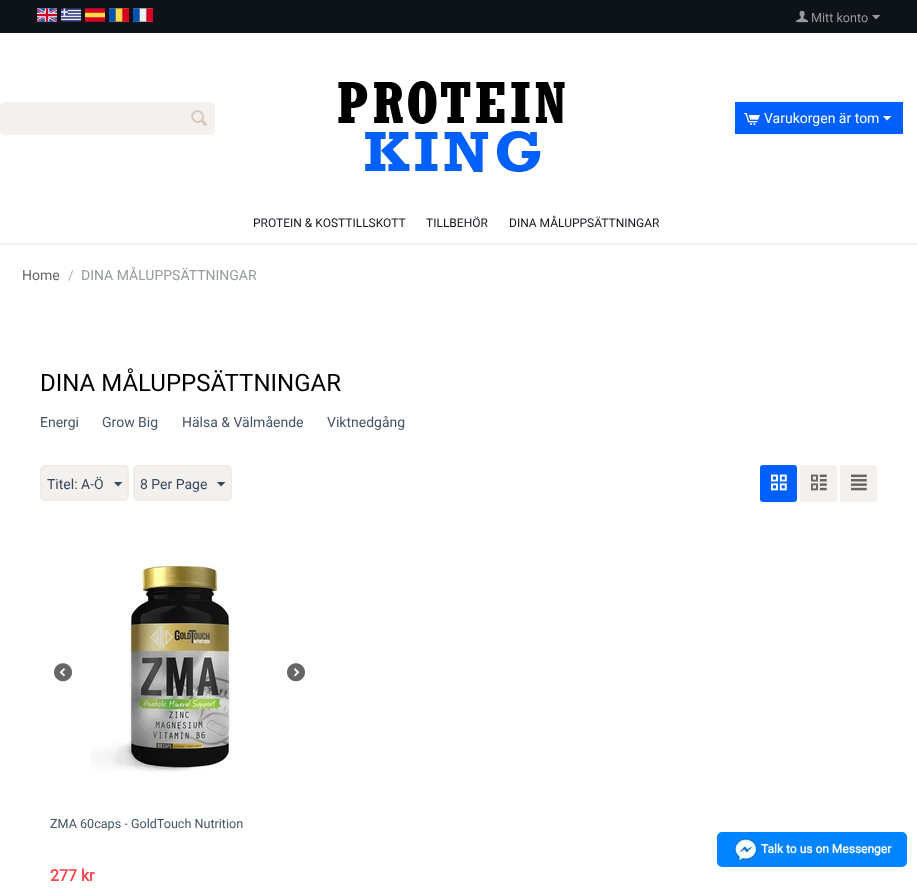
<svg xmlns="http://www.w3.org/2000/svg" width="917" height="892">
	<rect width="100%" height="100%" fill="#FFFFFF" />
	<rect x="0" y="0" width="917" height="33" fill="#0E1219" />
	<image x="37" y="8" width="20" height="14" href="assets/img1.png" />
	<image x="61" y="8" width="20" height="14" href="assets/img2.png" />
	<image x="85" y="8" width="20" height="14" href="assets/img3.png" />
	<image x="109" y="8" width="20" height="14" href="assets/img4.png" />
	<image x="133" y="8" width="20" height="14" href="assets/img5.png" />
	<image x="796" y="10" width="13" height="13" href="assets/img6.png" />
	<text x="811" y="22" font-family="Roboto" font-size="12.6" fill="#969B9B">Mitt konto</text>
	<path d="M876 19.5L872 15H880.5Z" fill="#969B9B" />
	<rect x="717" y="832" width="190" height="35" rx="5" fill="#0084FF" />
	<image x="733" y="837" width="25" height="25" href="assets/img7.png" />
	<text x="761" y="853" font-family="Roboto" font-size="12" font-weight="700" fill="#FFFFFF">Talk to us on Messenger</text>
	<rect x="1" y="103" width="213" height="31" rx="4" fill="#F4F0ED" stroke="#F4F0ED" stroke-width="2" />
	<image x="191" y="110" width="17" height="16" href="assets/img8.png" />
	<image x="338" y="81" width="227" height="91" href="assets/img9.png" />
	<rect x="735" y="102" width="168" height="32" fill="#0060FF" />
	<image x="744" y="113" width="16" height="12" href="assets/img10.png" />
	<text x="764" y="123" font-family="Roboto" font-size="14" fill="#FFFFFF">Varukorgen är tom</text>
	<path d="M887 120.5L883 116H891.5Z" fill="#FFFFFF" />
	<g font-family="Roboto" font-size="12" fill="#13171F">
		<text x="253" y="227">PROTEIN &amp; KOSTTILLSKOTT</text>
		<text x="426" y="227">TILLBEHÖR</text>
		<text x="509" y="227">DINA MÅLUPPSÄTTNINGAR</text>
	</g>
	<rect x="0" y="243" width="917" height="2" fill="#F4F0ED" />
	<text x="22" y="280" font-family="Roboto" font-size="14" fill="#666666">Home</text>
	<text x="68" y="280" font-family="Roboto" font-size="14" fill="#C4AE9E">/</text>
	<text x="81" y="280" font-family="Roboto" font-size="14" fill="#969B9B">DINA MÅLUPPSÄTTNINGAR</text>
	<text x="40" y="391" font-family="Roboto" font-size="24" fill="#000000">DINA MÅLUPPSÄTTNINGAR</text>
	<g font-family="Roboto" font-size="14" fill="#465363">
		<text x="40" y="427">Energi</text>
		<text x="102" y="427">Grow Big</text>
		<text x="182" y="427">Hälsa &amp; Välmående</text>
		<text x="327" y="427">Viktnedgång</text>
	</g>
	<rect x="41" y="466" width="87" height="34" rx="4" fill="#F4F0ED" stroke="#F0EBE7" stroke-width="2" />
	<text x="47" y="489" font-family="Roboto" font-size="14" fill="#34495E">Titel: A-Ö</text>
	<path d="M118 486.5L114 482H122.5Z" fill="#34495E" />
	<rect x="134" y="466" width="97" height="34" rx="4" fill="#F4F0ED" stroke="#F0EBE7" stroke-width="2" />
	<text x="140" y="489" font-family="Roboto" font-size="14" fill="#34495E">8 Per Page</text>
	<path d="M221 486.5L217 482H225.5Z" fill="#34495E" />
	<rect x="760" y="465" width="37" height="37" rx="3" fill="#0060FF" />
	<image x="771" y="474" width="16" height="17" href="assets/img11.png" />
	<rect x="800" y="465" width="37" height="37" rx="3" fill="#F4F0ED" />
	<image x="811" y="474" width="16" height="17" href="assets/img12.png" />
	<rect x="840" y="465" width="37" height="37" rx="3" fill="#F4F0ED" />
	<image x="851" y="474" width="16" height="17" href="assets/img13.png" />
	<image x="90" y="565" width="143" height="207" href="assets/img14.png" />
	<image x="54" y="663" width="18" height="19" href="assets/img15.png" />
	<image x="287" y="663" width="18" height="19" href="assets/img16.png" />
	<text x="50" y="828" font-family="Roboto" font-size="12.6" fill="#465363">ZMA 60caps - GoldTouch Nutrition</text>
	<g font-family="Roboto" font-size="16" font-weight="700" fill="#F2464E">
		<text x="50" y="881">277</text>
		<text x="81" y="881">kr</text>
	</g>
</svg>
